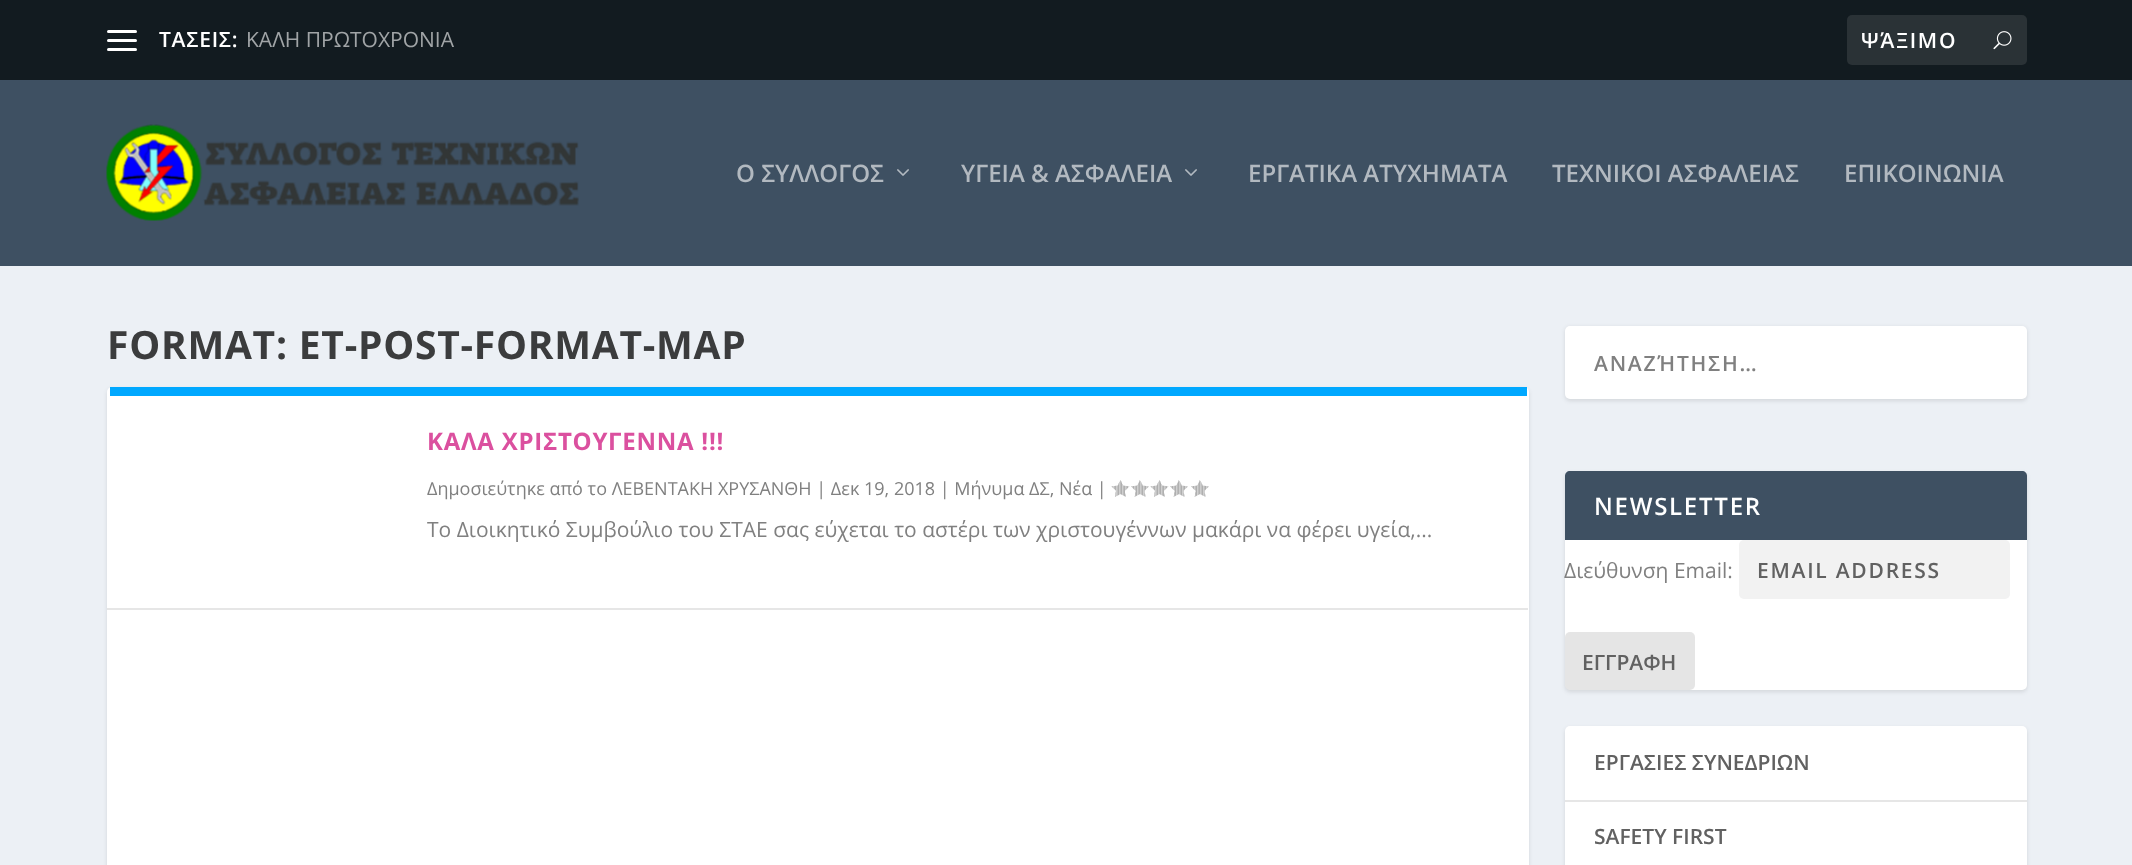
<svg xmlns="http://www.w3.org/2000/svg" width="2132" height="865">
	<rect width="100%" height="100%" fill="#ECF0F5" />
	<rect x="0" y="0" width="2132" height="80" fill="#121B20" />
	<rect x="107" y="30" width="30" height="3" rx="1.5" fill="#FFFFFF" />
	<rect x="107" y="39" width="30" height="3" rx="1.5" fill="#FFFFFF" />
	<rect x="107" y="48" width="30" height="3" rx="1.5" fill="#FFFFFF" />
	<text x="159" y="47" font-family="Open Sans" font-size="21" font-weight="600" letter-spacing="0.75" fill="#FFFFFF">ΤΑΣΕΙΣ:</text>
	<text x="246" y="47" font-family="Open Sans" font-size="21" fill="#A0A4A6">ΚΑΛΗ ΠΡΩΤΟΧΡΟΝΙΑ</text>
	<rect x="1847" y="15" width="180" height="50" rx="5" fill="#2A3236" />
	<text x="1861" y="48" font-family="Open Sans" font-size="21" font-weight="600" letter-spacing="1.75" fill="#FFFFFF">ΨΆΞΙΜΟ</text>
	<image x="1993" y="31" width="19" height="19" href="assets/img1.png" />
	<rect x="0" y="80" width="2132" height="186" fill="#3E5062" />
	<image x="106" y="124" width="473" height="97" href="assets/img2.png" />
	<text x="736" y="182" font-family="Open Sans" font-size="24" font-weight="600" fill="#B2B9C0">O ΣΥΛΛΟΓΟΣ</text>
	<image x="897" y="169" width="12" height="7" href="assets/img3.png" />
	<text x="961" y="182" font-family="Open Sans" font-size="24" font-weight="600" fill="#B2B9C0">ΥΓΕΙΑ &amp; ΑΣΦΑΛΕΙΑ</text>
	<image x="1185" y="169" width="12" height="7" href="assets/img3.png" />
	<g font-family="Open Sans" font-size="24" font-weight="600" fill="#B2B9C0">
		<text x="1248" y="182">ΕΡΓΑΤΙΚΑ ΑΤΥΧΗΜΑΤΑ</text>
		<text x="1552" y="182">ΤΕΧΝΙΚΟΙ ΑΣΦΑΛΕΙΑΣ</text>
		<text x="1844" y="182">ΕΠΙΚΟΙΝΩΝΙΑ</text>
	</g>
	<text x="107" y="359" font-family="Open Sans" font-size="39" font-weight="700" letter-spacing="0.75" fill="#3B3C3D">FORMAT: ET-POST-FORMAT-MAP</text>
	<rect x="107" y="389" width="1422" height="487" rx="5" fill="#000000" fill-opacity="0.1" filter="blur(2px)" />
	<rect x="107" y="387" width="1422" height="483" rx="5" fill="#FFFFFF" />
	<rect x="110" y="387" width="1417" height="9" fill="#00A8FF" />
	<rect x="107" y="608" width="1421" height="2" fill="#E6E6E6" />
	<text x="427" y="450" font-family="Open Sans" font-size="24" font-weight="700" letter-spacing="0.75" fill="#DB509F">ΚΑΛΑ ΧΡΙΣΤΟΥΓΕΝΝΑ !!!</text>
	<text x="427" y="495" font-family="Open Sans" font-size="18" fill="#808080">Δημοσιεύτηκε από το ΛΕΒΕΝΤΑΚΗ ΧΡΥΣΑΝΘΗ | Δεκ 19, 2018 | Μήνυμα ΔΣ, Νέα |</text>
	<image x="1111" y="480" width="19" height="17" href="assets/img4.png" />
	<image x="1131" y="480" width="18" height="17" href="assets/img5.png" />
	<image x="1150" y="480" width="19" height="17" href="assets/img4.png" />
	<image x="1170" y="480" width="18" height="17" href="assets/img5.png" />
	<image x="1191" y="480" width="18" height="17" href="assets/img5.png" />
	<text x="427" y="537" font-family="Open Sans" font-size="21" fill="#808080">Το Διοικητικό Συμβούλιο του ΣΤΑΕ σας εύχεται το αστέρι των χριστουγέννων μακάρι να φέρει υγεία,...</text>
	<rect x="1565" y="327" width="462" height="74" rx="5" fill="#000000" fill-opacity="0.1" filter="blur(2px)" />
	<rect x="1565" y="326" width="462" height="73" rx="5" fill="#FFFFFF" />
	<text x="1594" y="371" font-family="Open Sans" font-size="21" font-weight="600" letter-spacing="1.75" fill="#808080">ΑΝΑΖΉΤΗΣΗ…</text>
	<rect x="1565" y="473" width="462" height="219" rx="5" fill="#000000" fill-opacity="0.1" filter="blur(2px)" />
	<rect x="1565" y="471" width="462" height="219" rx="5" fill="#FFFFFF" />
	<path d="M1570 471H2022C2025 471 2027 473 2027 476V540H1565V476C1565 473 1567 471 1570 471Z" fill="#3E5062" />
	<text x="1594" y="515" font-family="Open Sans" font-size="24" font-weight="600" letter-spacing="1.75" fill="#FFFFFF">NEWSLETTER</text>
	<text x="1564" y="578" font-family="Open Sans" font-size="21" fill="#808080">Διεύθυνση Email:</text>
	<rect x="1739" y="540" width="271" height="59" rx="5" fill="#F2F2F2" />
	<text x="1757" y="578" font-family="Open Sans" font-size="21" font-weight="600" letter-spacing="1.75" fill="#616161">EMAIL ADDRESS</text>
	<rect x="1565" y="632" width="130" height="58" rx="5" fill="#000000" fill-opacity="0.1" />
	<text x="1582" y="670" font-family="Open Sans" font-size="21" font-weight="600" fill="#616161">ΕΓΓΡΑΦΗ</text>
	<rect x="1565" y="728" width="462" height="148" rx="5" fill="#000000" fill-opacity="0.1" filter="blur(2px)" />
	<rect x="1565" y="726" width="462" height="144" rx="5" fill="#FFFFFF" />
	<rect x="1565" y="800" width="462" height="2" fill="#E6E6E6" />
	<g font-family="Open Sans" font-size="21" font-weight="600" fill="#616161">
		<text x="1594" y="770">ΕΡΓΑΣΙΕΣ ΣΥΝΕΔΡΙΩΝ</text>
		<text x="1594" y="844">SAFETY FIRST</text>
	</g>
</svg>
